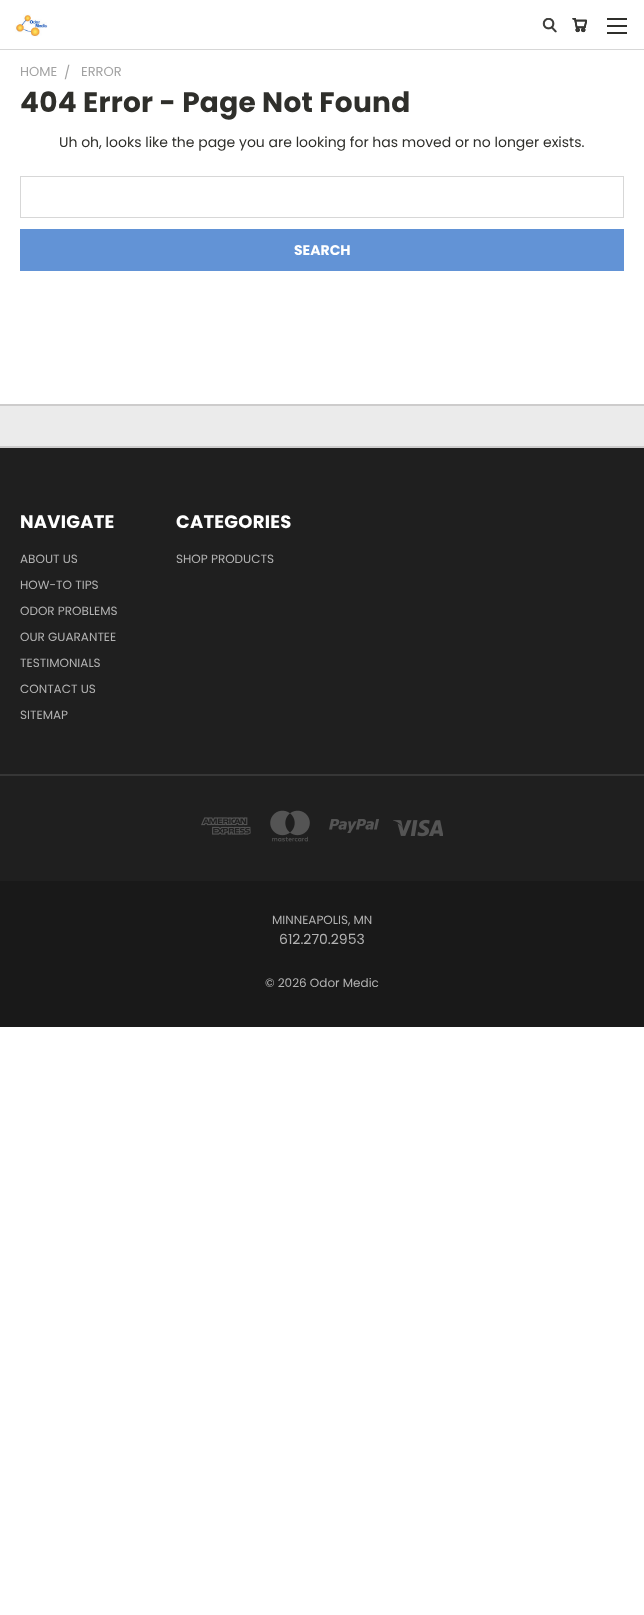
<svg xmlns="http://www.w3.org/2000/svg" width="644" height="1615">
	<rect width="100%" height="100%" fill="#FFFFFF" />
	<rect x="0" y="49" width="644" height="1" fill="#D7D7D7" />
	<image x="15" y="14" width="33" height="23" href="assets/img1.png" />
	<image x="542" y="18" width="15" height="15" href="assets/img2.png" />
	<image x="572" y="18" width="15" height="15" href="assets/img3.png" />
	<rect x="607" y="25" width="20" height="2" fill="#2F2F2B" />
	<rect x="607" y="18" width="20" height="2" fill="#2F2F2B" />
	<rect x="607" y="32" width="20" height="2" fill="#2F2F2B" />
	<g font-family="Poppins" font-size="13" fill="#A2A2A2">
		<text x="20" y="76">HOME</text>
		<text x="64" y="77">/</text>
		<text x="81" y="76">ERROR</text>
	</g>
	<text x="20" y="112" font-family="Poppins" font-size="28" font-weight="700" letter-spacing="0.25" fill="#2F2F2B">404 Error - Page Not Found</text>
	<text x="59" y="147" font-family="Poppins" font-size="14" fill="#2F2F2B">Uh oh, looks like the page you are looking for has moved or no longer exists.</text>
	<rect x="20.5" y="176.5" width="603" height="41" fill="none" stroke="#D7D7D7" />
	<rect x="20" y="229" width="604" height="42" fill="#6293D6" />
	<text x="294" y="255" font-family="Poppins" font-size="14" font-weight="700" fill="#FFFFFF">SEARCH</text>
	<rect x="0" y="406" width="644" height="40" fill="#EBEBEB" />
	<rect x="0" y="404" width="644" height="2" fill="#CDCCCC" />
	<rect x="0" y="448" width="644" height="433" fill="#1F1F1F" />
	<rect x="0" y="446" width="644" height="2" fill="#CDCCCC" />
	<text x="20" y="528" font-family="Poppins" font-size="18" font-weight="700" letter-spacing="0.25" fill="#FFFFFF">NAVIGATE</text>
	<g font-family="Poppins" font-size="12" fill="#B2B2B2">
		<text x="20" y="563">ABOUT US</text>
		<text x="20" y="589">HOW-TO TIPS</text>
		<text x="20" y="615">ODOR PROBLEMS</text>
		<text x="20" y="641">OUR GUARANTEE</text>
		<text x="20" y="667">TESTIMONIALS</text>
		<text x="20" y="693">CONTACT US</text>
		<text x="20" y="719">SITEMAP</text>
	</g>
	<text x="176" y="528" font-family="Poppins" font-size="18" font-weight="700" letter-spacing="0.25" fill="#FFFFFF">CATEGORIES</text>
	<text x="176" y="563" font-family="Poppins" font-size="12" fill="#B2B2B2">SHOP PRODUCTS</text>
	<rect x="0" y="774" width="644" height="2" fill="#363636" />
	<image x="201" y="817" width="50" height="18" href="assets/img4.png" />
	<image x="270" y="810" width="40" height="32" href="assets/img5.png" />
	<image x="329" y="819" width="50" height="14" href="assets/img6.png" />
	<image x="393" y="819" width="50" height="18" href="assets/img7.png" />
	<rect x="0" y="881" width="644" height="146" fill="#191919" />
	<text x="272" y="924" font-family="Poppins" font-size="12" fill="#B2B2B2">MINNEAPOLIS, MN</text>
	<text x="279" y="944" font-family="Poppins" font-size="14" fill="#B2B2B2">612.270.2953</text>
	<text x="265" y="987" font-family="Poppins" font-size="12" fill="#B2B2B2">© 2026 Odor Medic</text>
</svg>
